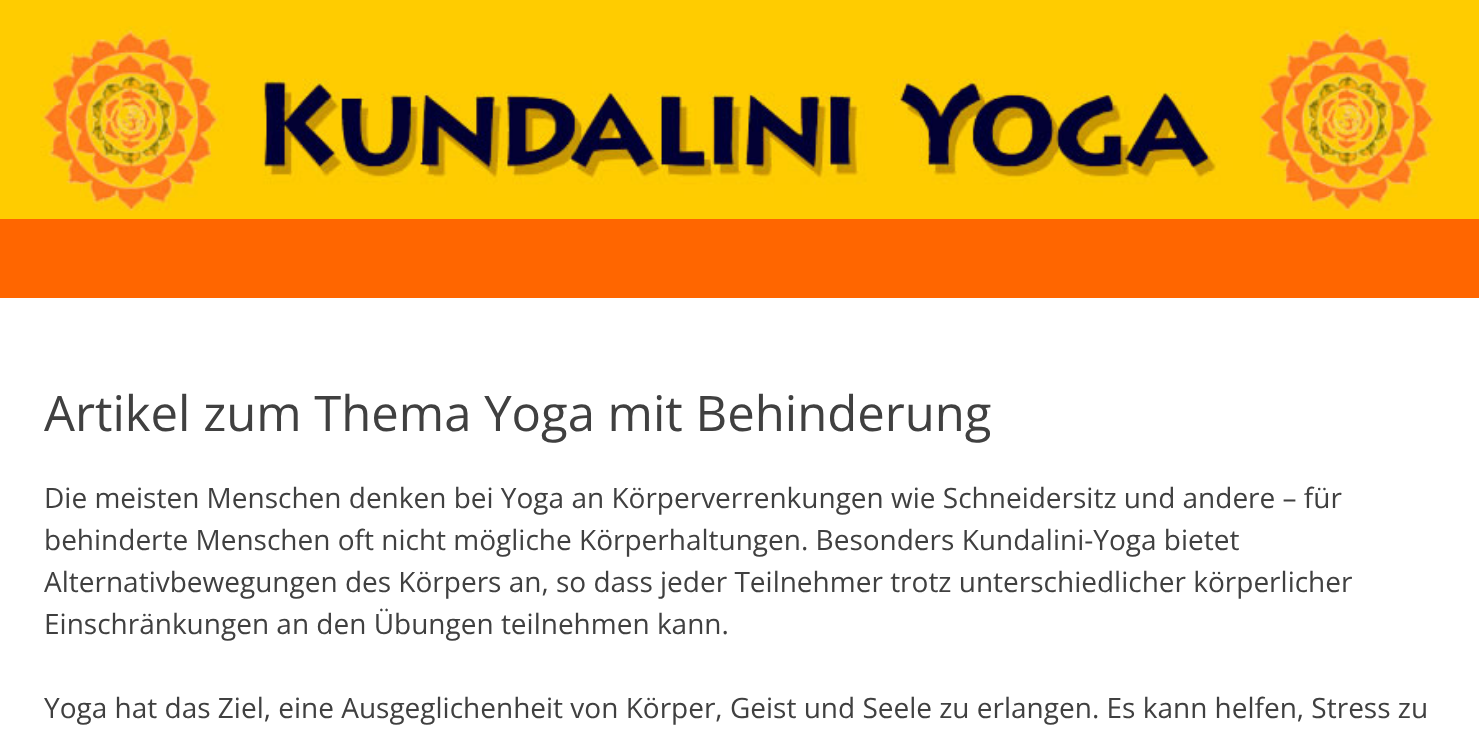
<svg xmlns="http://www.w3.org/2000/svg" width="1479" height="732">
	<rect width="100%" height="100%" fill="#FFFFFF" />
	<rect x="0" y="0" width="1479" height="219" fill="#FFCC00" />
	<image x="40" y="26" width="1399" height="185" href="assets/img1.png" />
	<rect x="0" y="219" width="1479" height="79" fill="#FF6600" />
	<text x="44" y="431" font-family="Open Sans" font-size="49" fill="#404040">Artikel zum Thema Yoga mit Behinderung</text>
	<g font-family="Open Sans" font-size="28" fill="#404040">
		<text x="44" y="508">Die meisten Menschen denken bei Yoga an Körperverrenkungen wie Schneidersitz und andere – für</text>
		<text x="44" y="550">behinderte Menschen oft nicht mögliche Körperhaltungen. Besonders Kundalini-Yoga bietet</text>
		<text x="44" y="592">Alternativbewegungen des Körpers an, so dass jeder Teilnehmer trotz unterschiedlicher körperlicher</text>
		<text x="44" y="634">Einschränkungen an den Übungen teilnehmen kann.</text>
		<text x="44" y="718">Yoga hat das Ziel, eine Ausgeglichenheit von Körper, Geist und Seele zu erlangen. Es kann helfen, Stress zu</text>
	</g>
</svg>
